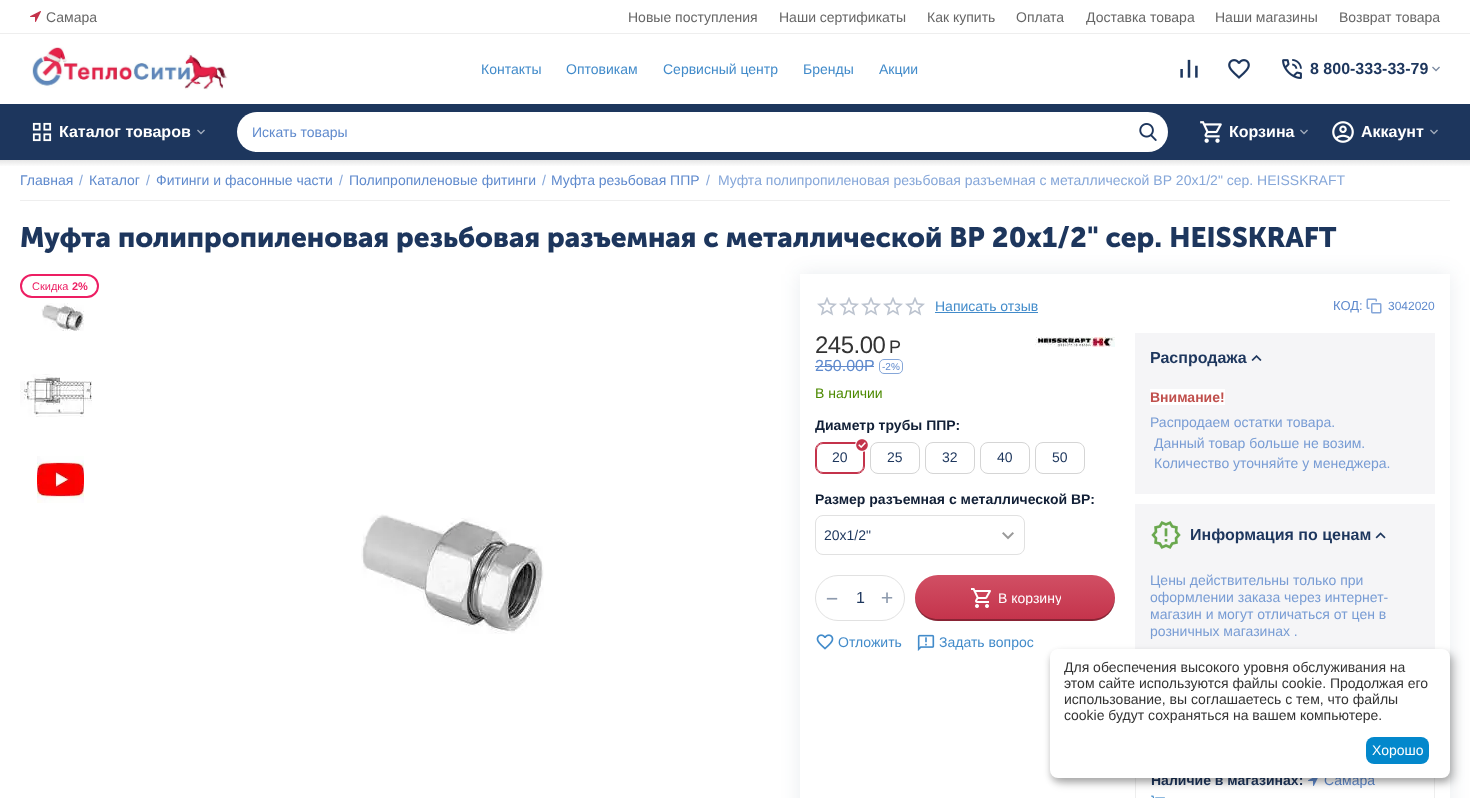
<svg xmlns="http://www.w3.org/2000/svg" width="1478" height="798">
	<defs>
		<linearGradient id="g1" gradientUnits="userSpaceOnUse" x1="735" y1="160" x2="735" y2="167"><stop offset="0" stop-color="#E6E6E6" /><stop offset="1" stop-color="#FFFFFF" /></linearGradient>
		<clipPath id="clip1"><path d="M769 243H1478V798H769ZM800 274H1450V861H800Z" clip-rule="evenodd" /></clipPath>
		<linearGradient id="g2" gradientUnits="userSpaceOnUse" x1="1015" y1="621" x2="1015" y2="575"><stop offset="0" stop-color="#C4334B" /><stop offset="1" stop-color="#D14F64" /></linearGradient>
		<clipPath id="clip2"><rect x="998" y="591" width="63" height="14" /></clipPath>
	</defs>
	<rect width="100%" height="100%" fill="#FFFFFF" />
	<rect x="0" y="33" width="1470" height="1" fill="#EEEEEE" />
	<image x="30" y="11" width="11" height="11" href="assets/img1.png" />
	<g font-family="Liberation Sans" font-size="14" fill="#666666">
		<text x="46" y="22">Самара</text>
		<text x="628" y="22">Новые поступления</text>
		<text x="779" y="22">Наши сертификаты</text>
		<text x="927" y="22">Как купить</text>
		<text x="1016" y="22">Оплата</text>
		<text x="1086" y="22">Доставка товара</text>
		<text x="1215" y="22">Наши магазины</text>
		<text x="1339" y="22">Возврат товара</text>
	</g>
	<image x="32" y="47" width="196" height="43" href="assets/img2.png" />
	<g font-family="Liberation Sans" font-size="14" fill="#428BCA">
		<text x="481" y="74">Контакты</text>
		<text x="566" y="74">Оптовикам</text>
		<text x="663" y="74">Сервисный центр</text>
		<text x="803" y="74">Бренды</text>
		<text x="879" y="74">Акции</text>
	</g>
	<image x="1180" y="59" width="18" height="19" href="assets/img3.png" />
	<image x="1228" y="59" width="22" height="20" href="assets/img4.png" />
	<image x="1282" y="59" width="20" height="20" href="assets/img5.png" />
	<text x="1310" y="74" font-family="Liberation Sans" font-size="16" font-weight="700" fill="#1D365D">8 800-333-33-79</text>
	<image x="1432" y="66" width="8" height="6" href="assets/img6.png" />
	<rect x="0" y="104" width="1470" height="56" fill="#1D365D" />
	<image x="32" y="122" width="20" height="20" href="assets/img7.png" />
	<text x="59" y="137" font-family="Liberation Sans" font-size="16" font-weight="700" fill="#FFFFFF">Каталог товаров</text>
	<image x="197" y="129" width="8" height="6" href="assets/img8.png" />
	<rect x="237" y="112" width="931" height="40" rx="20" fill="#FFFFFF" />
	<text x="252" y="137" font-family="Liberation Sans" font-size="14" fill="#5F8ACD">Искать товары</text>
	<image x="1139" y="123" width="18" height="18" href="assets/img9.png" />
	<image x="1200" y="121" width="22" height="22" href="assets/img10.png" />
	<text x="1229" y="137" font-family="Liberation Sans" font-size="16" font-weight="700" fill="#FFFFFF">Корзина</text>
	<image x="1300" y="129" width="8" height="6" href="assets/img8.png" />
	<image x="1332" y="121" width="22" height="22" href="assets/img11.png" />
	<text x="1361" y="137" font-family="Liberation Sans" font-size="16" font-weight="700" fill="#FFFFFF">Аккаунт</text>
	<image x="1430" y="129" width="8" height="6" href="assets/img8.png" />
	<rect x="0" y="160" width="1470" height="6" fill="url(#g1)" />
	<rect x="20" y="200" width="1430" height="1" fill="#EEEEEE" />
	<text x="20" y="185" font-family="Liberation Sans" font-size="14" fill="#5F8ACD">Главная</text>
	<text x="79" y="185" font-family="Liberation Sans" font-size="14" fill="#86A7D9">/</text>
	<text x="89" y="185" font-family="Liberation Sans" font-size="14" fill="#5F8ACD">Каталог</text>
	<text x="146" y="185" font-family="Liberation Sans" font-size="14" fill="#86A7D9">/</text>
	<text x="156" y="185" font-family="Liberation Sans" font-size="14" fill="#5F8ACD">Фитинги и фасонные части</text>
	<text x="339" y="185" font-family="Liberation Sans" font-size="14" fill="#86A7D9">/</text>
	<text x="349" y="185" font-family="Liberation Sans" font-size="14" fill="#5F8ACD">Полипропиленовые фитинги</text>
	<text x="542" y="185" font-family="Liberation Sans" font-size="14" fill="#86A7D9">/</text>
	<text x="551" y="185" font-family="Liberation Sans" font-size="14" fill="#5F8ACD">Муфта резьбовая ППР</text>
	<g font-family="Liberation Sans" font-size="14" fill="#86A7D9">
		<text x="706" y="185">/</text>
		<text x="718" y="185">Муфта полипропиленовая резьбовая разъемная с металлической ВР 20x1/2" сер. HEISSKRAFT</text>
	</g>
	<text x="20" y="247" font-family="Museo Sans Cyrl" font-size="28" font-weight="700" fill="#1D365D">Муфта полипропиленовая резьбовая разъемная с металлической ВР 20x1/2" сер. HEISSKRAFT</text>
	<rect x="21" y="275" width="77" height="22" rx="11" fill="none" stroke="#ED1E63" stroke-width="2" />
	<text x="32" y="290" font-family="Liberation Sans" font-size="11" fill="#ED1E63">Скидка</text>
	<text x="72" y="290" font-family="Liberation Sans" font-size="11" font-weight="700" fill="#ED1E63">2%</text>
	<image x="41" y="303" width="43" height="28" href="assets/img12.png" />
	<image x="20" y="374" width="72" height="43" href="assets/img13.png" />
	<image x="37" y="456" width="47" height="47" href="assets/img14.png" />
	<image x="361" y="514" width="183" height="120" href="assets/img15.png" />
	<g clip-path="url(#clip1)">
		<rect x="800" y="274" width="650" height="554" fill="#1D365D" fill-opacity="0.1" filter="blur(10px)" />
	</g>
	<image x="817" y="297" width="108" height="19" href="assets/img16.png" />
	<text x="935" y="311" font-family="Liberation Sans" font-size="14" fill="#428BCA">Написать отзыв</text>
	<rect x="935" y="312" width="103" height="1" fill="#428BCA" />
	<text x="1333" y="310" font-family="Liberation Sans" font-size="13" fill="#5F8ACD">КОД:</text>
	<image x="1366" y="298" width="16" height="16" href="assets/img17.png" />
	<text x="1388" y="310" font-family="Liberation Sans" font-size="12" fill="#5F8ACD">3042020</text>
	<text x="815" y="353" font-family="Liberation Sans" font-size="24" letter-spacing="-0.5" fill="#333333">245.00</text>
	<text x="889" y="353" font-family="Liberation Sans" font-size="18" letter-spacing="-0.5" fill="#333333">Р</text>
	<text x="815" y="371" font-family="Liberation Sans" font-size="16" fill="#5F8ACD">250.00Р</text>
	<rect x="815" y="366" width="59" height="1" fill="#5F8ACD" />
	<rect x="879.5" y="359.5" width="23" height="14" rx="4.5" fill="none" stroke="#86A7D9" />
	<text x="882" y="370" font-family="Liberation Sans" font-size="10" fill="#5F8ACD">-2%</text>
	<image x="1035" y="337" width="80" height="10" href="assets/img18.png" />
	<text x="815" y="398" font-family="Liberation Sans" font-size="14" fill="#4C8A00">В наличии</text>
	<text x="815" y="430" font-family="Liberation Sans" font-size="14" font-weight="700" fill="#111F36">Диаметр трубы ППР:</text>
	<rect x="816.5" y="443.5" width="47" height="29" rx="6.5" fill="none" stroke="#C4334B" />
	<rect x="815.5" y="442.5" width="49" height="31" rx="7.5" fill="none" stroke="#C4334B" />
	<circle cx="862" cy="445" r="7" fill="#FFFFFF" />
	<image x="856" y="439" width="12" height="12" href="assets/img19.png" />
	<text x="832" y="462" font-family="Liberation Sans" font-size="14" fill="#1D365D">20</text>
	<rect x="870.5" y="442.5" width="49" height="31" rx="7.5" fill="none" stroke="#D5D5D5" />
	<text x="887" y="462" font-family="Liberation Sans" font-size="14" fill="#1D365D">25</text>
	<rect x="925.5" y="442.5" width="49" height="31" rx="7.5" fill="none" stroke="#D5D5D5" />
	<text x="942" y="462" font-family="Liberation Sans" font-size="14" fill="#1D365D">32</text>
	<rect x="980.5" y="442.5" width="49" height="31" rx="7.5" fill="none" stroke="#D5D5D5" />
	<text x="997" y="462" font-family="Liberation Sans" font-size="14" fill="#1D365D">40</text>
	<rect x="1035.5" y="442.5" width="49" height="31" rx="7.5" fill="none" stroke="#D5D5D5" />
	<text x="1052" y="462" font-family="Liberation Sans" font-size="14" fill="#1D365D">50</text>
	<text x="815" y="504" font-family="Liberation Sans" font-size="14" font-weight="700" fill="#111F36">Размер разъемная с металлической ВР:</text>
	<image x="1002" y="532" width="12" height="8" href="assets/img20.png" />
	<rect x="815.5" y="515.5" width="209" height="39" rx="7.5" fill="none" stroke="#E1E1E1" />
	<text x="824" y="540" font-family="Liberation Sans" font-size="14" fill="#1D365D">20x1/2"</text>
	<rect x="815.5" y="575.5" width="89" height="45" rx="22.5" fill="none" stroke="#E1E1E1" />
	<text x="826" y="605" font-family="DejaVu Sans Mono" font-size="20" fill="#8E9BAE">−</text>
	<text x="856" y="603" font-family="Liberation Sans" font-size="16" fill="#1D365D">1</text>
	<text x="881" y="604" font-family="DejaVu Sans Mono" font-size="20" fill="#8E9BAE">+</text>
	<rect x="915" y="575" width="200" height="46" rx="23" fill="url(#g2)" />
	<path d="M915 597V598C915 611 925 621 938 621H1092C1105 621 1115 611 1115 598V597C1114 610 1105 619 1092 619H938C925 619 916 610 915 597Z" fill="#000000" fill-opacity="0.3" />
	<image x="971" y="588" width="20" height="20" href="assets/img21.png" />
	<g clip-path="url(#clip2)">
		<text x="998" y="603" font-family="Liberation Sans" font-size="14" fill="#FFFFFF">В корзину</text>
	</g>
	<image x="816" y="634" width="18" height="16" href="assets/img22.png" />
	<text x="838" y="647" font-family="Liberation Sans" font-size="14" fill="#428BCA">Отложить</text>
	<image x="917" y="634" width="18" height="17" href="assets/img23.png" />
	<text x="939" y="647" font-family="Liberation Sans" font-size="14" fill="#428BCA">Задать вопрос</text>
	<rect x="1135" y="333" width="300" height="161" fill="#F5F5F7" />
	<text x="1150" y="363" font-family="Liberation Sans" font-size="16" font-weight="700" fill="#1D365D">Распродажа</text>
	<image x="1251" y="355" width="11" height="6" href="assets/img24.png" />
	<rect x="1150" y="389" width="75" height="16" fill="#FFFFFF" />
	<text x="1150" y="402" font-family="Liberation Sans" font-size="14" font-weight="700" fill="#C0504D">Внимание!</text>
	<g font-family="Liberation Sans" font-size="14" fill="#789CD4">
		<text x="1150" y="427">Распродаем остатки товара.</text>
		<text x="1154" y="448">Данный товар больше не возим.</text>
		<text x="1154" y="468">Количество уточняйте у менеджера.</text>
	</g>
	<rect x="1135" y="504" width="300" height="145" fill="#F5F5F7" />
	<image x="1151" y="521" width="30" height="28" href="assets/img25.png" />
	<text x="1190" y="540" font-family="Liberation Sans" font-size="16" font-weight="700" fill="#1D365D">Информация по ценам</text>
	<image x="1375" y="532" width="11" height="7" href="assets/img26.png" />
	<g font-family="Liberation Sans" font-size="14" fill="#789CD4">
		<text x="1150" y="585">Цены действительны только при</text>
		<text x="1150" y="602">оформлении заказа через интернет-</text>
		<text x="1150" y="619">магазин и могут отличаться от цен в</text>
		<text x="1150" y="636">розничных магазинах .</text>
	</g>
	<rect x="1135.5" y="731.5" width="299" height="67" fill="none" stroke="#EEEEEE" />
	<text x="1151" y="785" font-family="Liberation Sans" font-size="14" font-weight="700" fill="#1D365D">Наличие в магазинах:</text>
	<image x="1308" y="778" width="10" height="8" href="assets/img27.png" />
	<text x="1324" y="785" font-family="Liberation Sans" font-size="14" fill="#5F8ACD">Самара</text>
	<image x="1151" y="795" width="14" height="3" href="assets/img28.png" />
	<rect x="1055" y="654" width="400" height="129" rx="8" fill="#000000" fill-opacity="0.19" filter="blur(5px)" />
	<rect x="1050" y="653" width="400" height="129" rx="8" fill="#000000" fill-opacity="0.2" filter="blur(3px)" />
	<rect x="1050" y="649" width="400" height="129" rx="8" fill="#FFFFFF" />
	<g font-family="Liberation Sans" font-size="14" fill="#333333">
		<text x="1064" y="672">Для обеспечения высокого уровня обслуживания на</text>
		<text x="1064" y="688">этом сайте используются файлы cookie. Продолжая его</text>
		<text x="1064" y="704">использование, вы соглашаетесь с тем, что файлы</text>
		<text x="1064" y="720">cookie будут сохраняться на вашем компьютере.</text>
	</g>
	<rect x="1366" y="737" width="63" height="27" rx="8" fill="#0388CC" />
	<text x="1372" y="755" font-family="Liberation Sans" font-size="14" fill="#FFFFFF">Хорошо</text>
</svg>
